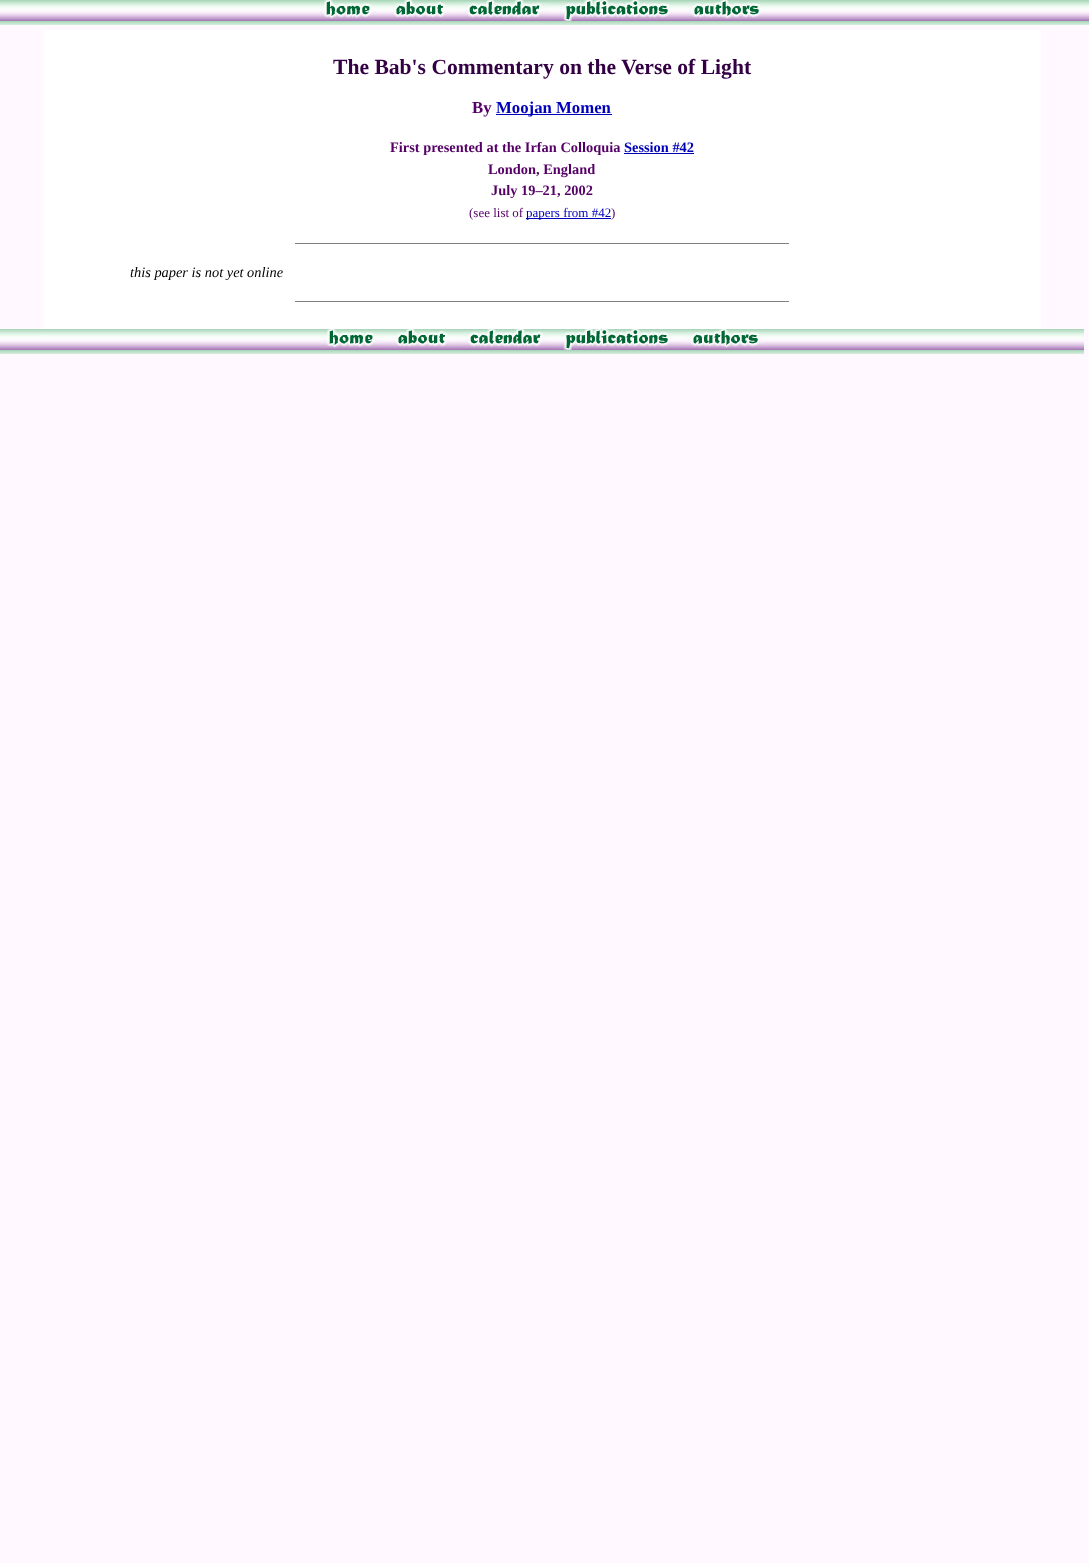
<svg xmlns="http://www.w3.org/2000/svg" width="1089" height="1563">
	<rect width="100%" height="100%" fill="#FFF8FF" />
	<image x="0" y="0" width="1089" height="25" href="assets/img1.png" />
	<image x="319" y="0" width="58" height="19" href="assets/img2.png" />
	<image x="394" y="0" width="52" height="18" href="assets/img3.png" />
	<image x="462" y="0" width="85" height="18" href="assets/img4.png" />
	<image x="563" y="0" width="107" height="21" href="assets/img5.png" />
	<image x="687" y="0" width="76" height="19" href="assets/img6.png" />
	<rect x="43" y="30" width="998" height="299" fill="#FFFFFF" />
	<text x="333" y="74" font-family="Liberation Serif" font-size="21.6" font-weight="700" fill="#330044">The Bab's Commentary on the Verse of Light</text>
	<text x="472" y="113" font-family="Liberation Serif" font-size="16.75" font-weight="700" fill="#550066">By</text>
	<rect x="496" y="114" width="116" height="1" fill="#0000BB" />
	<text x="496" y="113" font-family="Liberation Serif" font-size="16.75" font-weight="700" fill="#0000BB">Moojan Momen</text>
	<text x="390" y="152" font-family="Liberation Serif" font-size="14.4" font-weight="700" fill="#550066">First presented at the Irfan Colloquia</text>
	<text x="624" y="152" font-family="Liberation Serif" font-size="14.4" font-weight="700" fill="#0000BB">Session #42</text>
	<rect x="624" y="153" width="70" height="1" fill="#0000BB" />
	<g font-family="Liberation Serif" font-size="14.4" font-weight="700" fill="#550066">
		<text x="488" y="174">London, England</text>
		<text x="491" y="195">July 19–21, 2002</text>
	</g>
	<text x="469" y="217" font-family="Liberation Serif" font-size="13" fill="#550066">(see list of</text>
	<rect x="526" y="218" width="85" height="1" fill="#0000BB" />
	<text x="526" y="217" font-family="Liberation Serif" font-size="13" fill="#0000BB">papers from #42</text>
	<text x="611" y="217" font-family="Liberation Serif" font-size="13" fill="#550066">)</text>
	<rect x="295" y="243" width="494" height="1" fill="#808080" />
	<text x="130" y="277" font-family="Liberation Serif" font-size="14.4" font-style="italic" fill="#000000">this paper is not yet online</text>
	<rect x="295" y="301" width="494" height="1" fill="#808080" />
	<image x="0" y="329" width="1084" height="25" href="assets/img7.png" />
	<image x="322" y="329" width="58" height="19" href="assets/img2.png" />
	<image x="396" y="329" width="52" height="18" href="assets/img3.png" />
	<image x="463" y="329" width="85" height="18" href="assets/img4.png" />
	<image x="563" y="329" width="107" height="21" href="assets/img5.png" />
	<image x="686" y="329" width="76" height="19" href="assets/img6.png" />
</svg>
